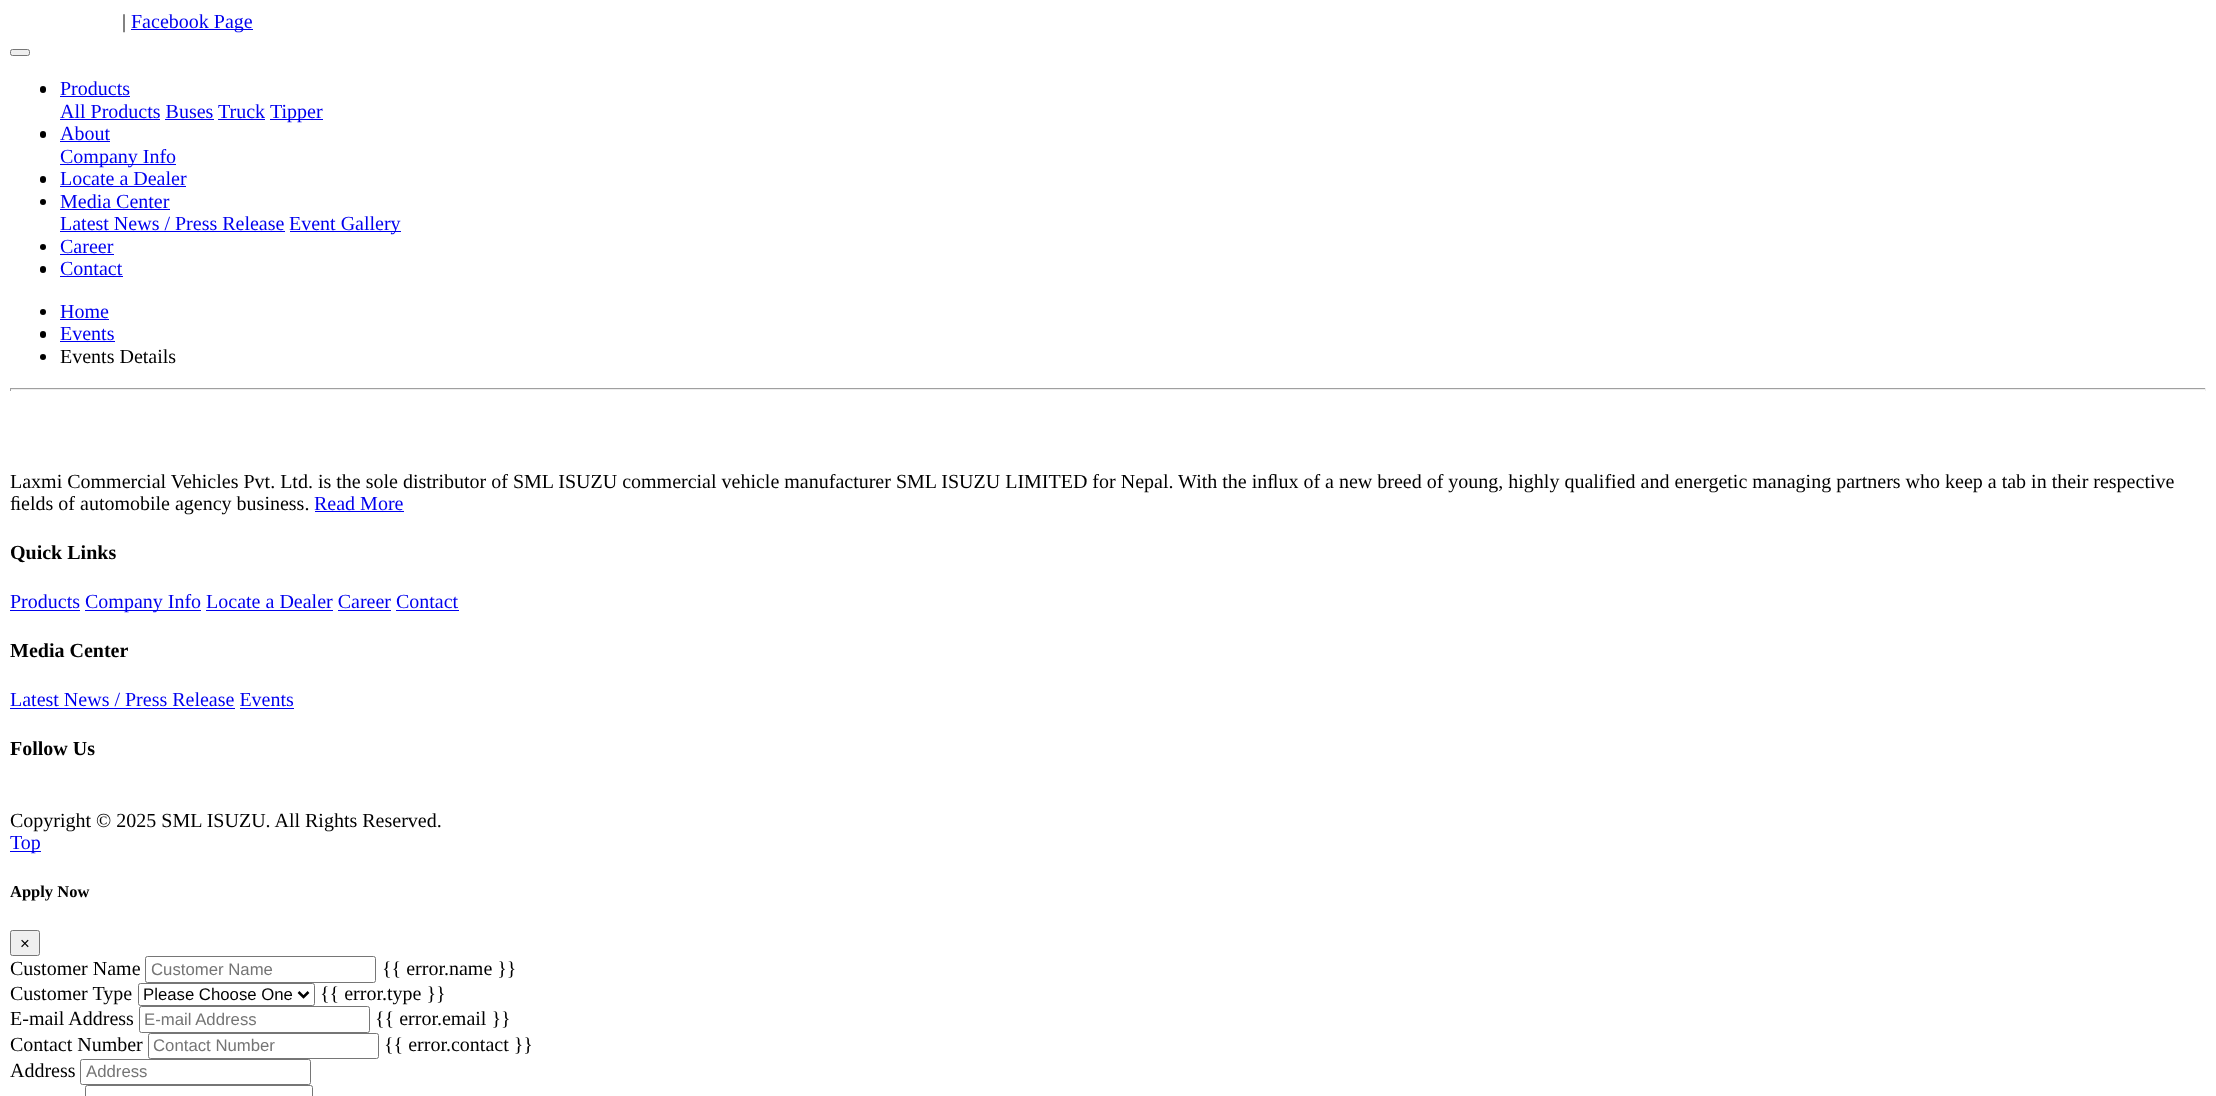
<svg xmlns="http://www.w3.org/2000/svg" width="2216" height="1096">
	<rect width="100%" height="100%" fill="#FFFFFF" />
	<text x="122" y="28" font-family="Liberation Serif" font-size="20" fill="#000000">|</text>
	<rect x="131" y="29" width="122" height="1" fill="#0000EE" />
	<text x="131" y="28" font-family="Liberation Serif" font-size="20" fill="#0000EE">Facebook Page</text>
	<rect x="10.5" y="49.5" width="19" height="6" rx="2" fill="#EFEFEF" stroke="#767676" />
	<rect x="40" y="86" width="6" height="7" rx="3" fill="#000000" />
	<text x="60" y="95" font-family="Liberation Serif" font-size="20" fill="#0000EE">Products</text>
	<rect x="60" y="96" width="70" height="1" fill="#0000EE" />
	<text x="60" y="118" font-family="Liberation Serif" font-size="20" fill="#0000EE">All Products Buses</text>
	<rect x="60" y="119" width="100" height="1" fill="#0000EE" />
	<text x="218" y="118" font-family="Liberation Serif" font-size="20" fill="#0000EE">Truck</text>
	<rect x="218" y="119" width="47" height="1" fill="#0000EE" />
	<rect x="270" y="119" width="53" height="1" fill="#0000EE" />
	<text x="270" y="118" font-family="Liberation Serif" font-size="20" fill="#0000EE">Tipper</text>
	<rect x="165" y="119" width="49" height="1" fill="#0000EE" />
	<rect x="40" y="131" width="6" height="7" rx="3" fill="#000000" />
	<text x="60" y="140" font-family="Liberation Serif" font-size="20" fill="#0000EE">About</text>
	<rect x="60" y="141" width="50" height="1" fill="#0000EE" />
	<rect x="60" y="164" width="116" height="1" fill="#0000EE" />
	<text x="60" y="163" font-family="Liberation Serif" font-size="20" fill="#0000EE">Company Info</text>
	<rect x="40" y="176" width="6" height="7" rx="3" fill="#000000" />
	<text x="60" y="185" font-family="Liberation Serif" font-size="20" fill="#0000EE">Locate a Dealer</text>
	<rect x="60" y="186" width="126" height="1" fill="#0000EE" />
	<circle cx="43" cy="202" r="3" fill="#000000" />
	<text x="60" y="208" font-family="Liberation Serif" font-size="20" fill="#0000EE">Media Center</text>
	<rect x="60" y="209" width="110" height="1" fill="#0000EE" />
	<text x="60" y="230" font-family="Liberation Serif" font-size="20" fill="#0000EE">Latest News / Press Release</text>
	<rect x="60" y="231" width="225" height="1" fill="#0000EE" />
	<rect x="290" y="231" width="111" height="1" fill="#0000EE" />
	<text x="289" y="230" font-family="Liberation Serif" font-size="20" fill="#0000EE">Event Gallery</text>
	<circle cx="43" cy="247" r="3" fill="#000000" />
	<text x="60" y="253" font-family="Liberation Serif" font-size="20" fill="#0000EE">Career</text>
	<rect x="60" y="254" width="54" height="1" fill="#0000EE" />
	<rect x="40" y="266" width="6" height="7" rx="3" fill="#000000" />
	<text x="60" y="275" font-family="Liberation Serif" font-size="20" fill="#0000EE">Contact</text>
	<rect x="60" y="276" width="63" height="1" fill="#0000EE" />
	<circle cx="43" cy="312" r="3" fill="#000000" />
	<text x="60" y="318" font-family="Liberation Serif" font-size="20" fill="#0000EE">Home</text>
	<rect x="60" y="319" width="49" height="1" fill="#0000EE" />
	<rect x="40" y="331" width="6" height="7" rx="3" fill="#000000" />
	<text x="60" y="340" font-family="Liberation Serif" font-size="20" fill="#0000EE">Events</text>
	<rect x="60" y="341" width="55" height="1" fill="#0000EE" />
	<circle cx="43" cy="357" r="3" fill="#000000" />
	<text x="60" y="363" font-family="Liberation Serif" font-size="20" fill="#000000">Events Details</text>
	<rect x="10" y="388" width="2196" height="1" fill="#9F9F9F" />
	<rect x="2205" y="388" width="1" height="3" fill="#EEEEEE" />
	<rect x="10" y="389" width="2196" height="1" fill="#EEEEEE" />
	<rect x="10" y="388" width="1" height="3" fill="#9F9F9F" />
	<g font-family="Liberation Serif" font-size="20" fill="#000000">
		<text x="10" y="488">Laxmi Commercial Vehicles Pvt. Ltd. is the sole distributor of SML ISUZU commercial vehicle manufacturer SML ISUZU LIMITED for Nepal. With the inﬂux of a new breed of young, highly qualified and energetic managing partners who keep a tab in their respective</text>
		<text x="10" y="510">ﬁelds of automobile agency business.</text>
	</g>
	<text x="314" y="510" font-family="Liberation Serif" font-size="20" fill="#0000EE">Read More</text>
	<rect x="315" y="511" width="89" height="1" fill="#0000EE" />
	<text x="10" y="559" font-family="Liberation Serif" font-size="20" font-weight="700" fill="#000000">Quick Links</text>
	<text x="10" y="608" font-family="Liberation Serif" font-size="20" fill="#0000EE">Products</text>
	<rect x="10" y="610" width="70" height="1" fill="#0000EE" />
	<rect x="85" y="610" width="116" height="1" fill="#0000EE" />
	<text x="85" y="608" font-family="Liberation Serif" font-size="20" fill="#0000EE">Company Info Locate a Dealer Career Contact</text>
	<rect x="206" y="610" width="127" height="1" fill="#0000EE" />
	<rect x="338" y="610" width="53" height="1" fill="#0000EE" />
	<rect x="396" y="610" width="63" height="1" fill="#0000EE" />
	<text x="10" y="657" font-family="Liberation Serif" font-size="20" font-weight="700" fill="#000000">Media Center</text>
	<text x="10" y="706" font-family="Liberation Serif" font-size="20" fill="#0000EE">Latest News / Press Release Events</text>
	<rect x="10" y="708" width="225" height="1" fill="#0000EE" />
	<rect x="240" y="708" width="54" height="1" fill="#0000EE" />
	<text x="10" y="755" font-family="Liberation Serif" font-size="20" font-weight="700" fill="#000000">Follow Us</text>
	<text x="10" y="827" font-family="Liberation Serif" font-size="20" fill="#000000">Copyright © 2025 SML ISUZU. All Rights Reserved.</text>
	<rect x="10" y="851" width="31" height="1" fill="#0000EE" />
	<text x="10" y="849" font-family="Liberation Serif" font-size="20" fill="#0000EE">Top</text>
	<text x="10" y="897" font-family="Liberation Serif" font-size="16.5" font-weight="700" fill="#000000">Apply Now</text>
	<rect x="10.5" y="930.5" width="29" height="25" rx="2" fill="#EFEFEF" stroke="#767676" />
	<text x="20" y="949" font-family="Liberation Sans" font-size="16.75" fill="#000000">×</text>
	<text x="10" y="975" font-family="Liberation Serif" font-size="20" fill="#000000">Customer Name</text>
	<rect x="145.5" y="956.5" width="230" height="26" rx="2" fill="none" stroke="#767676" />
	<text x="151" y="975" font-family="Liberation Sans" font-size="16.75" fill="#757575">Customer Name</text>
	<g font-family="Liberation Serif" font-size="20" fill="#000000">
		<text x="382" y="975">{{ error.name }}</text>
		<text x="10" y="1000">Customer Type</text>
	</g>
	<rect x="138.5" y="983.5" width="176" height="22" rx="2" fill="none" stroke="#767676" />
	<path d="M298.5 992L303.5 997L308.5 992" fill="none" stroke="#000000" stroke-width="2.5" />
	<text x="143" y="1000" font-family="Liberation Sans" font-size="16.75" fill="#000000">Please Choose One</text>
	<g font-family="Liberation Serif" font-size="20" fill="#000000">
		<text x="320" y="1000">{{ error.type }}</text>
		<text x="10" y="1025">E-mail Address</text>
	</g>
	<rect x="139.5" y="1006.5" width="230" height="26" rx="2" fill="none" stroke="#767676" />
	<text x="144" y="1025" font-family="Liberation Sans" font-size="16.75" fill="#757575">E-mail Address</text>
	<g font-family="Liberation Serif" font-size="20" fill="#000000">
		<text x="375" y="1025">{{ error.email }}</text>
		<text x="10" y="1051">Contact Number</text>
	</g>
	<rect x="148.5" y="1033.5" width="230" height="25" rx="2" fill="none" stroke="#767676" />
	<text x="153" y="1051" font-family="Liberation Sans" font-size="16.75" fill="#757575">Contact Number</text>
	<g font-family="Liberation Serif" font-size="20" fill="#000000">
		<text x="384" y="1051">{{ error.contact }}</text>
		<text x="10" y="1077">Address</text>
	</g>
	<rect x="80.5" y="1059.5" width="230" height="25" rx="2" fill="none" stroke="#767676" />
	<text x="86" y="1077" font-family="Liberation Sans" font-size="16.75" fill="#757575">Address</text>
	<rect x="85.5" y="1085.5" width="227" height="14" rx="2" fill="none" stroke="#767676" />
</svg>
